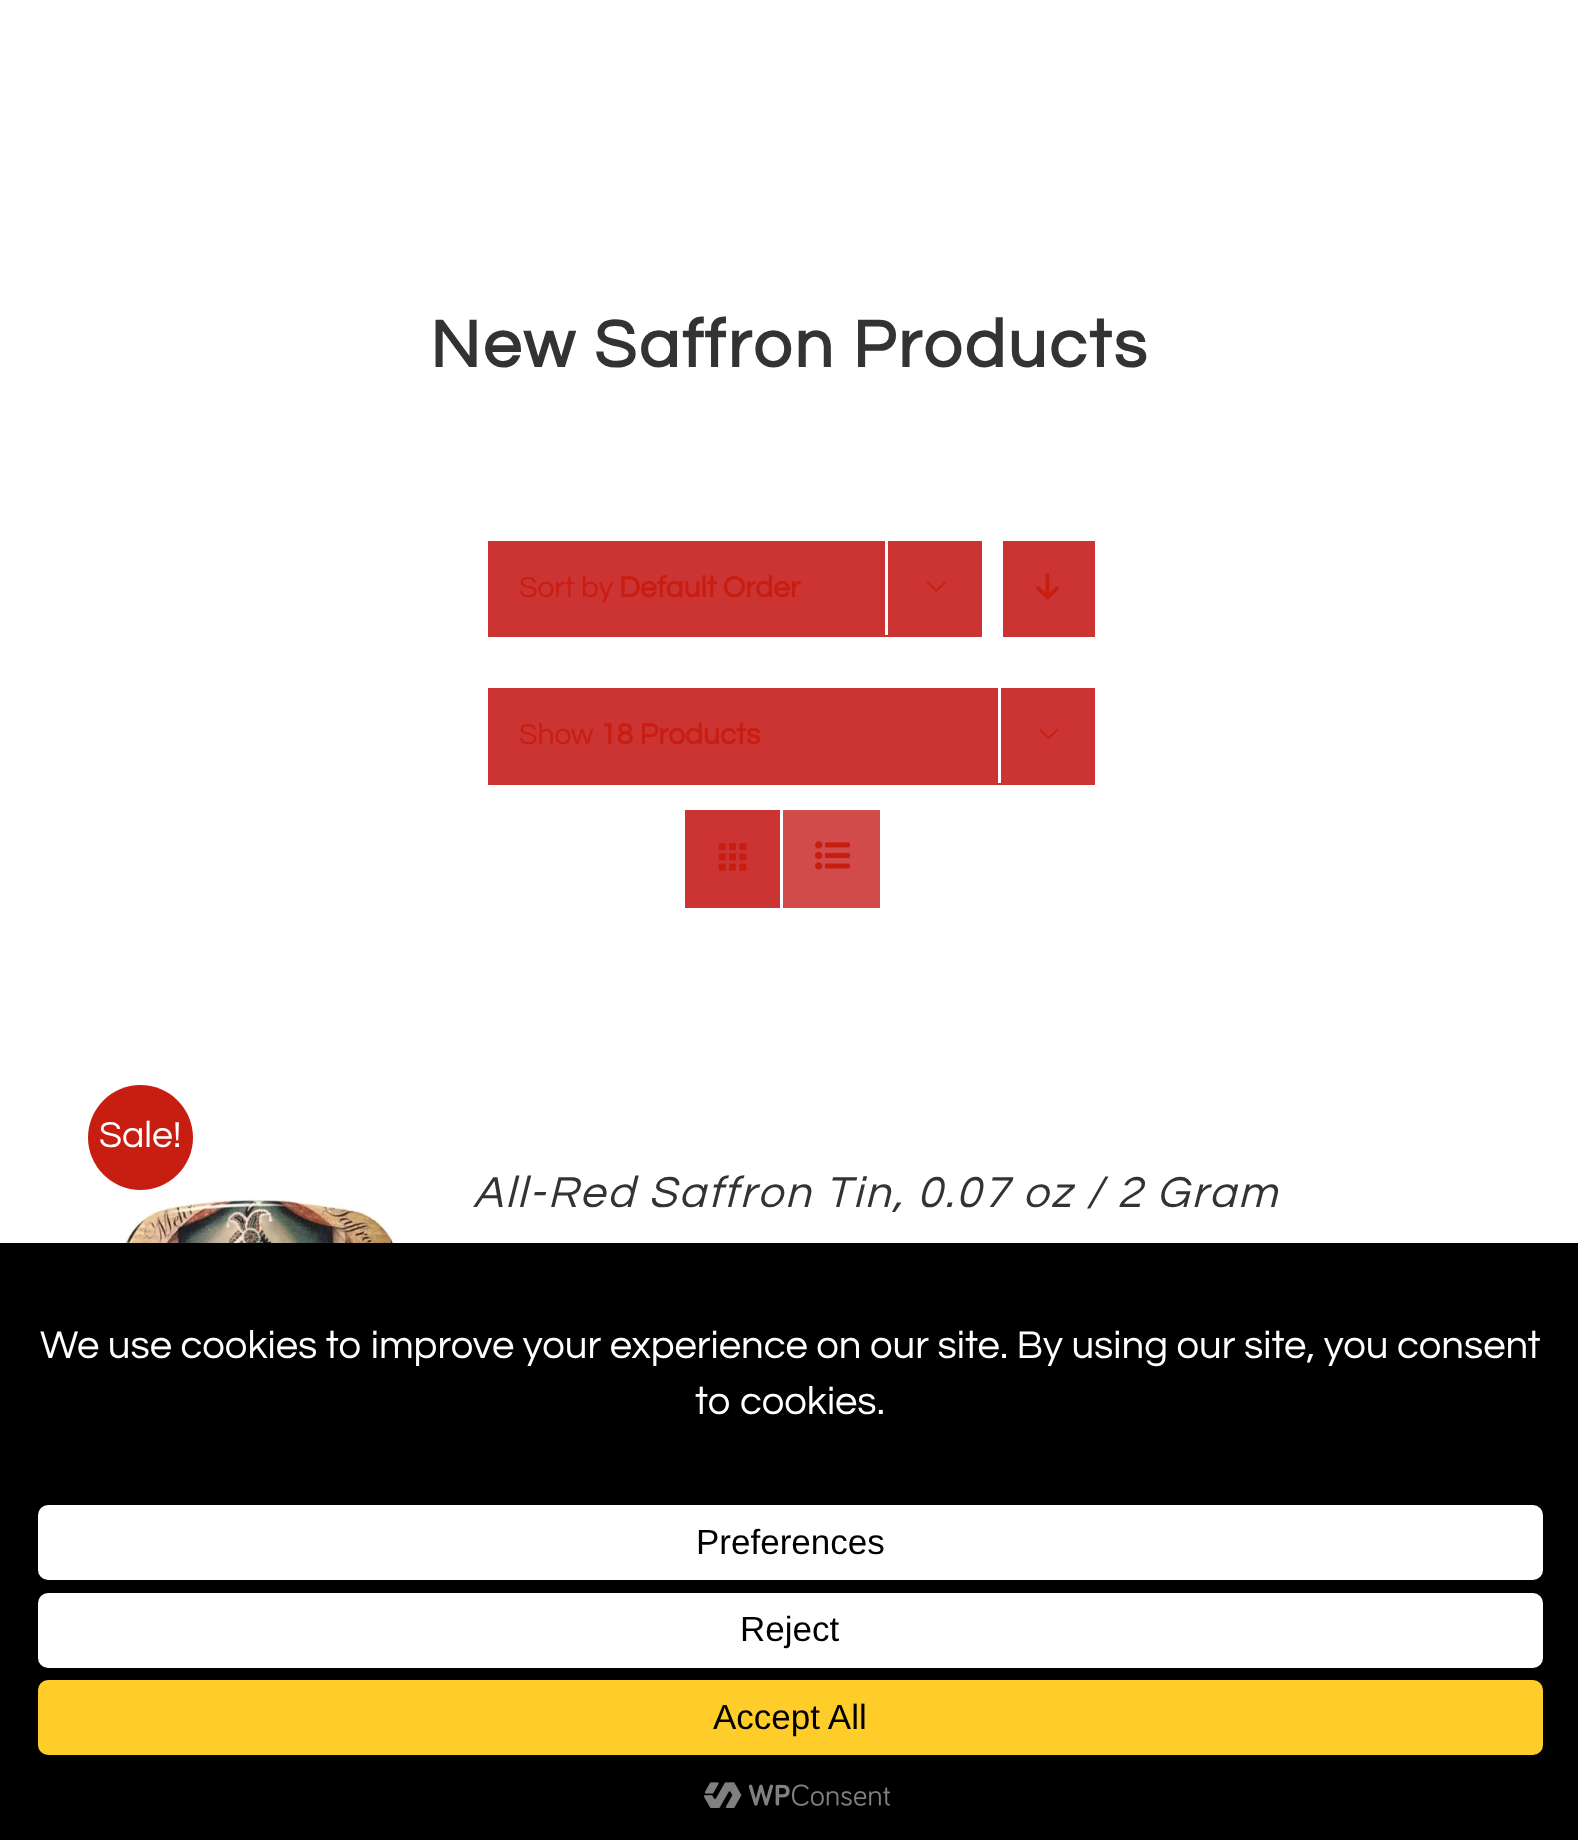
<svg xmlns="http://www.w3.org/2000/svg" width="1578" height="1840">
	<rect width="100%" height="100%" fill="#FFFFFF" />
	<text x="430" y="367" font-family="Questrial" font-size="68.5" font-weight="700" letter-spacing="2.5" fill="#333333">New Saffron Products</text>
	<rect x="488" y="541" width="494" height="96" fill="#CC3333" />
	<text x="519" y="597" font-family="Questrial" font-size="30" fill="#C81D11">Sort by</text>
	<text x="619" y="597" font-family="Questrial" font-size="30" font-weight="700" fill="#C81D11">Default Order</text>
	<rect x="885" y="538" width="3" height="97" fill="#FFFFFF" />
	<image x="926" y="581" width="20" height="11" href="assets/img1.png" />
	<rect x="1003" y="541" width="92" height="96" fill="#CC3333" />
	<image x="1036" y="573" width="23" height="27" href="assets/img2.png" />
	<rect x="488" y="688" width="607" height="97" fill="#CC3333" />
	<text x="519" y="744" font-family="Questrial" font-size="30" fill="#C81D11">Show</text>
	<text x="600" y="744" font-family="Questrial" font-size="30" font-weight="700" fill="#C81D11">18 Products</text>
	<rect x="998" y="685" width="3" height="98" fill="#FFFFFF" />
	<image x="1039" y="729" width="20" height="10" href="assets/img3.png" />
	<rect x="685" y="810" width="95" height="98" fill="#CC3333" />
	<image x="718" y="843" width="29" height="28" href="assets/img4.png" />
	<rect x="783" y="810" width="97" height="98" fill="#D24B4B" />
	<image x="815" y="841" width="35" height="29" href="assets/img5.png" />
	<circle cx="140.5" cy="1137.5" r="52.5" fill="#C81D11" />
	<text x="99" y="1147" font-family="Questrial" font-size="37.5" fill="#FFFFFF">Sale!</text>
	<text x="473" y="1207" font-family="Questrial" font-size="45" font-style="italic" letter-spacing="2.5" fill="#333333">All-Red Saffron Tin, 0.07 oz / 2 Gram</text>
	<image x="116" y="1198" width="284" height="45" href="assets/img6.png" />
	<rect x="0" y="1243" width="1578" height="597" fill="#000000" />
	<g font-family="Questrial" font-size="40" fill="#FFFFFF">
		<text x="40" y="1358">We use cookies to improve your experience on our site. By using our site, you consent</text>
		<text x="695" y="1414">to cookies.</text>
	</g>
	<rect x="38" y="1505" width="1505" height="75" rx="10" fill="#FFFFFF" />
	<text x="696" y="1554" font-family="Liberation Sans" font-size="35" fill="#000000">Preferences</text>
	<rect x="38" y="1593" width="1505" height="75" rx="10" fill="#FFFFFF" />
	<text x="740" y="1641" font-family="Liberation Sans" font-size="35" fill="#000000">Reject</text>
	<rect x="38" y="1680" width="1505" height="75" rx="10" fill="#FFCD2A" />
	<text x="713" y="1729" font-family="Liberation Sans" font-size="35" fill="#000000">Accept All</text>
	<image x="704" y="1782" width="186" height="26" href="assets/img7.png" />
</svg>
